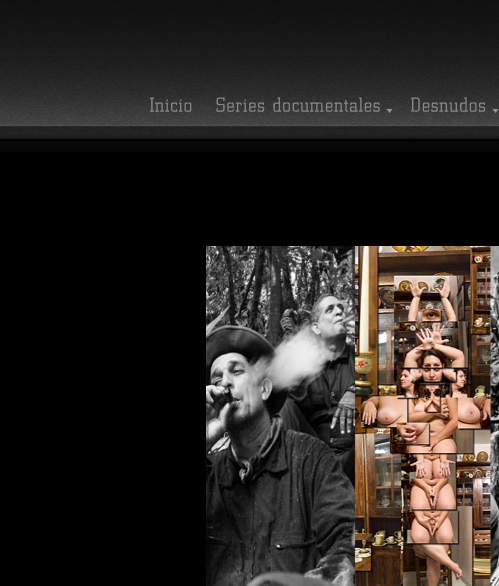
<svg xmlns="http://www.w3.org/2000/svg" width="499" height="586">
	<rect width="100%" height="100%" fill="#000000" />
	<image x="0" y="0" width="499" height="152" href="assets/img1.png" />
	<image x="150" y="97" width="42" height="15" href="assets/img2.png" />
	<image x="386" y="109" width="7" height="4" href="assets/img3.png" />
	<image x="216" y="97" width="49" height="15" href="assets/img4.png" />
	<image x="273" y="97" width="107" height="15" href="assets/img5.png" />
	<image x="492" y="109" width="7" height="4" href="assets/img6.png" />
	<image x="411" y="97" width="75" height="15" href="assets/img7.png" />
	<image x="206" y="246" width="293" height="340" href="assets/img8.png" />
</svg>
